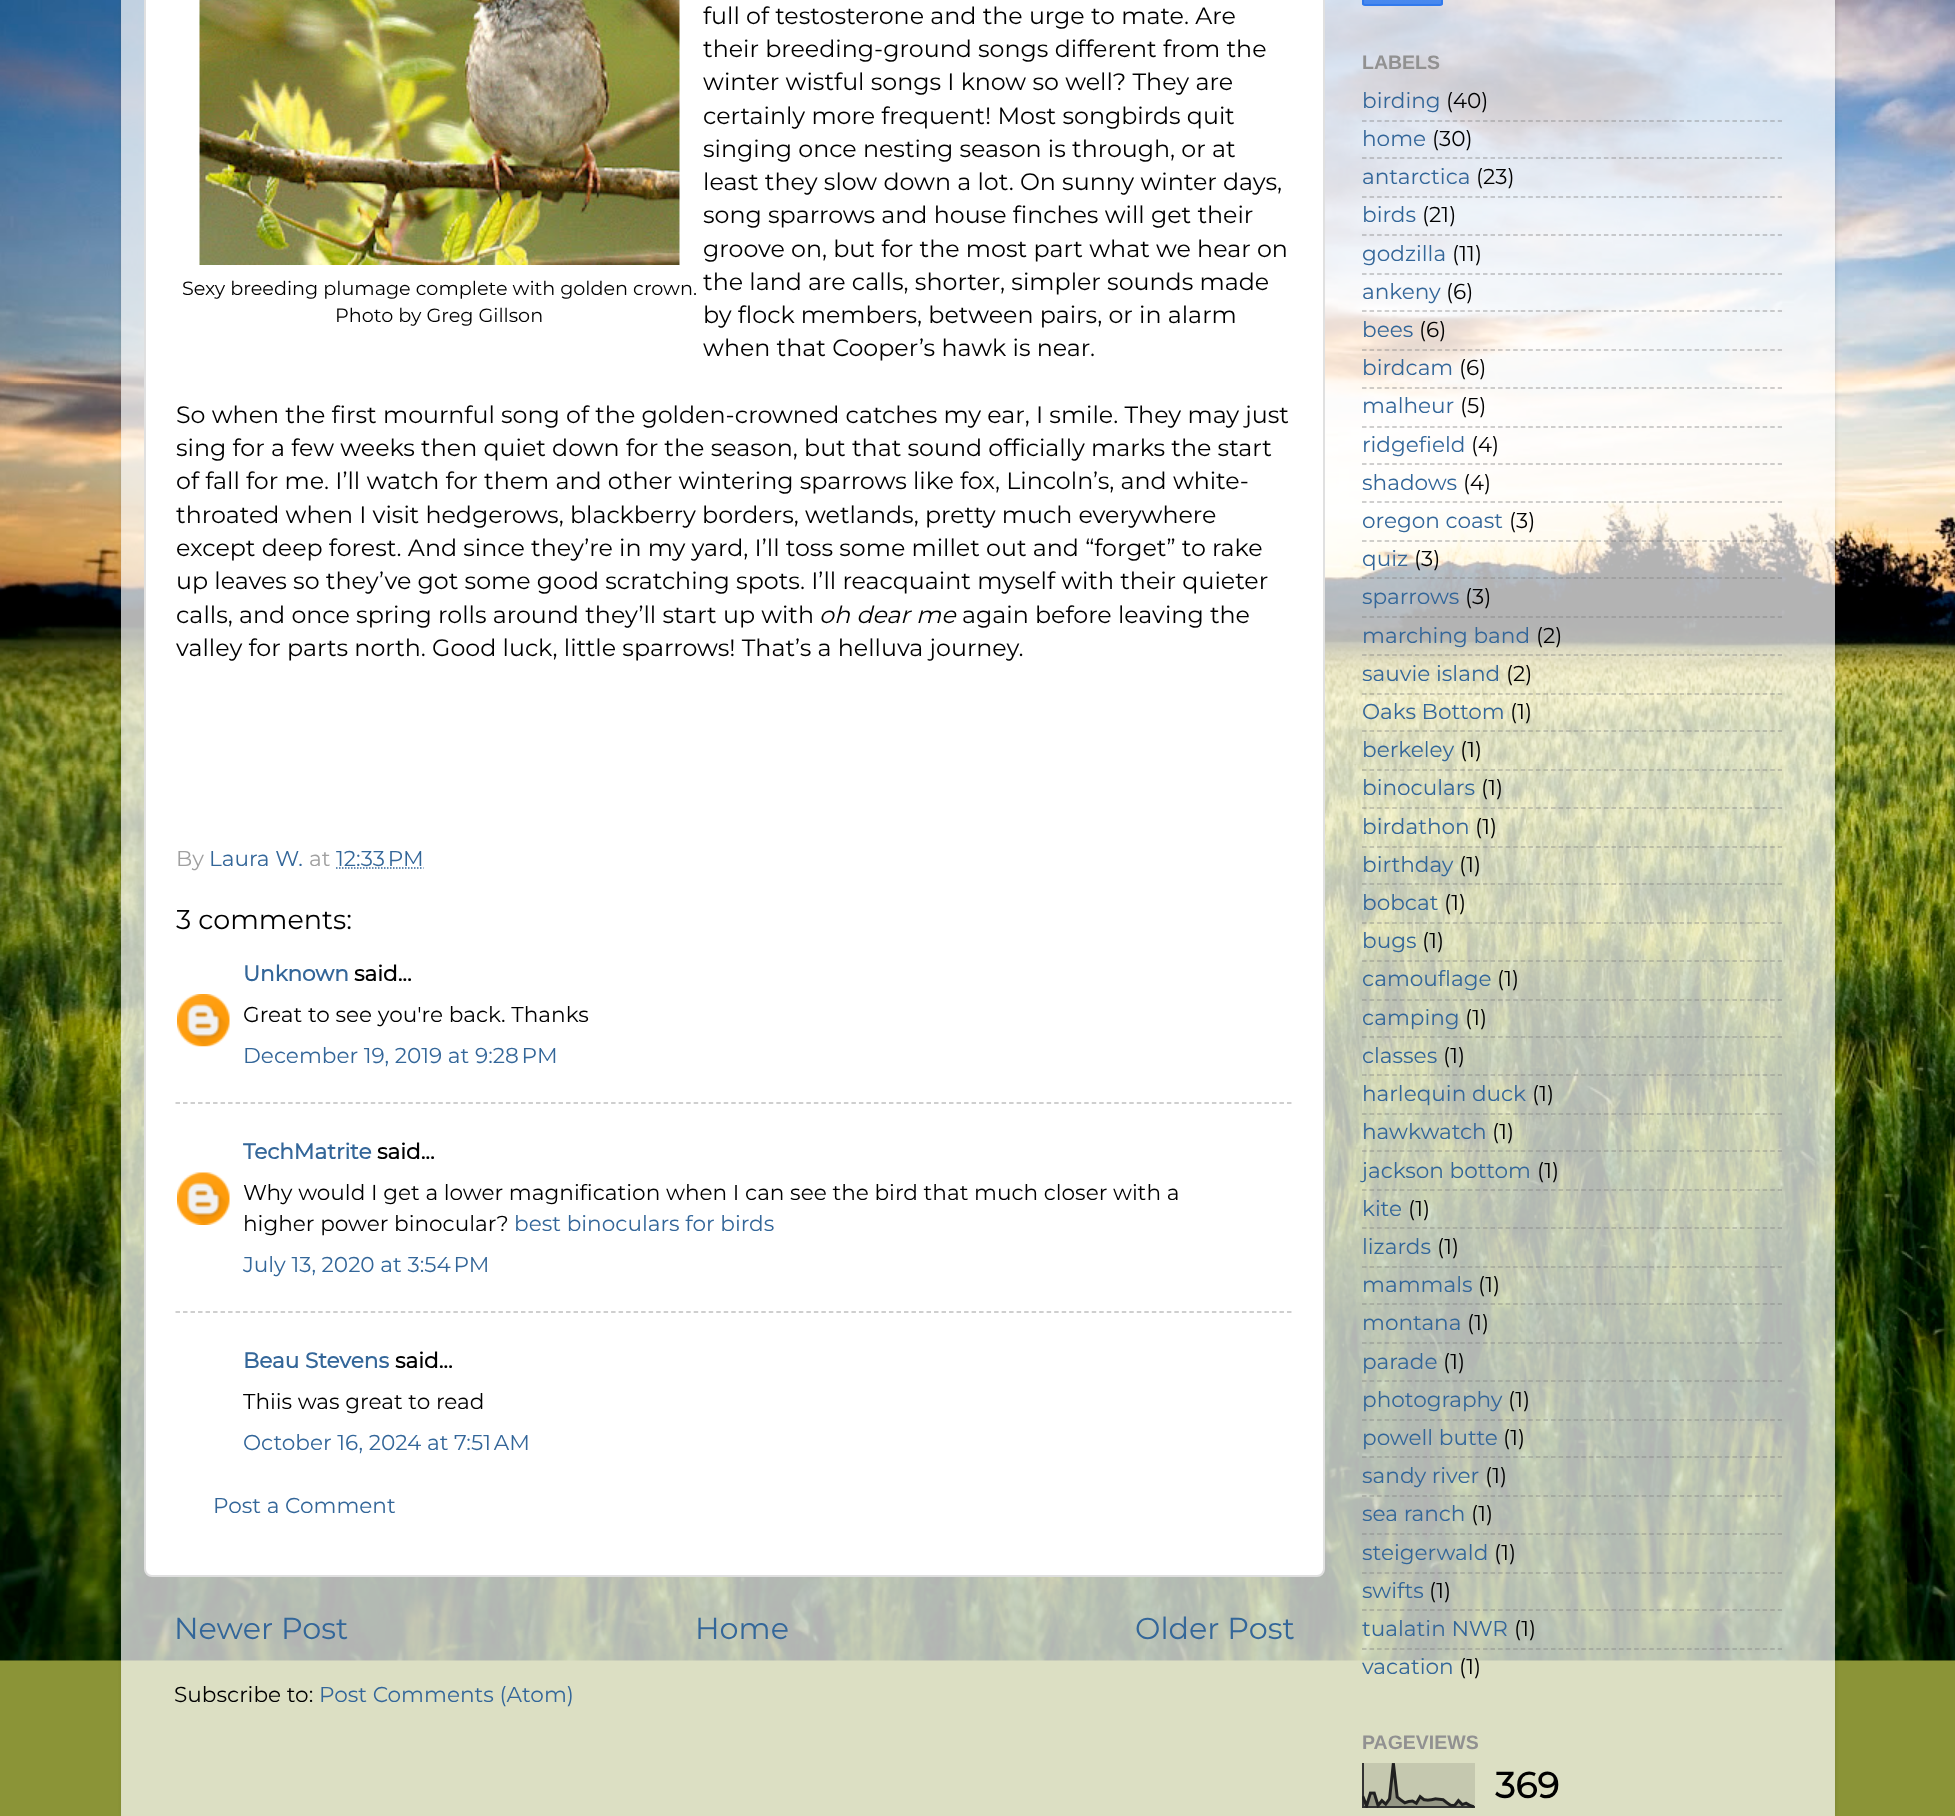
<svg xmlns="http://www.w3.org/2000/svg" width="1955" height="1816">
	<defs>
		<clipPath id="clip1"><path d="M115 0H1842V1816H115ZM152-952H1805C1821.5-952 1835-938.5 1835-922V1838H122V-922C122-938.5 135.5-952 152-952Z" clip-rule="evenodd" /></clipPath>
		<clipPath id="clip2"><rect x="1362" y="-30" width="81" height="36" rx="3" /></clipPath>
		<linearGradient id="g1" gradientUnits="userSpaceOnUse" x1="1403" y1="-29" x2="1403" y2="4.5"><stop offset="0" stop-color="#4D90FE" /><stop offset="1" stop-color="#4787ED" /></linearGradient>
	</defs>
	<rect width="100%" height="100%" fill="#8B9437" />
	<image x="0" y="0" width="1955" height="1661" href="assets/img1.png" />
	<g clip-path="url(#clip1)">
		<rect x="122" y="-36" width="1713" height="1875" rx="30" fill="#000000" fill-opacity="0.15" filter="blur(2px)" />
	</g>
	<rect x="121" y="0" width="1714" height="1816" fill="#FFFFFF" fill-opacity="0.7" />
	<rect x="145" y="-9" width="1179" height="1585" rx="7" fill="#FFFFFF" stroke="#E0E0E0" stroke-width="2" />
	<image x="199" y="0" width="481" height="265" href="assets/img2.png" />
	<g font-family="Montserrat" font-size="19.2" font-weight="100" fill="#000000">
		<text x="182" y="295">Sexy breeding plumage complete with golden crown.</text>
		<text x="335" y="322">Photo by Greg Gillson</text>
	</g>
	<g font-family="Montserrat" font-size="23.75" font-weight="100" fill="#000000">
		<text x="703" y="24">full of testosterone and the urge to mate. Are</text>
		<text x="703" y="57">their breeding-ground songs different from the</text>
		<text x="703" y="90">winter wistful songs I know so well? They are</text>
		<text x="703" y="124">certainly more frequent! Most songbirds quit</text>
		<text x="703" y="157">singing once nesting season is through, or at</text>
		<text x="703" y="190">least they slow down a lot. On sunny winter days,</text>
		<text x="703" y="223">song sparrows and house finches will get their</text>
		<text x="703" y="257">groove on, but for the most part what we hear on</text>
		<text x="703" y="290">the land are calls, shorter, simpler sounds made</text>
		<text x="703" y="323">by flock members, between pairs, or in alarm</text>
		<text x="703" y="356">when that Cooper’s hawk is near.</text>
		<text x="176" y="423">So when the first mournful song of the golden-crowned catches my ear, I smile. They may just</text>
		<text x="176" y="456">sing for a few weeks then quiet down for the season, but that sound officially marks the start</text>
		<text x="176" y="489">of fall for me. I’ll watch for them and other wintering sparrows like fox, Lincoln’s, and white-</text>
		<text x="176" y="523">throated when I visit hedgerows, blackberry borders, wetlands, pretty much everywhere</text>
		<text x="176" y="556">except deep forest. And since they’re in my yard, I’ll toss some millet out and “forget” to rake</text>
		<text x="176" y="589">up leaves so they’ve got some good scratching spots. I’ll reacquaint myself with their quieter</text>
		<text x="176" y="623">calls, and once spring rolls around they’ll start up with</text>
	</g>
	<text x="819" y="623" font-family="Montserrat" font-size="23.75" font-weight="100" font-style="italic" fill="#000000">oh dear me</text>
	<g font-family="Montserrat" font-size="23.75" font-weight="100" fill="#000000">
		<text x="962" y="623">again before leaving the</text>
		<text x="176" y="656">valley for parts north. Good luck, little sparrows! That’s a helluva journey.</text>
	</g>
	<text x="176" y="866" font-family="Montserrat" font-size="21.6" font-weight="100" fill="#A0A0A0">By</text>
	<text x="209" y="866" font-family="Montserrat" font-size="21.6" font-weight="100" fill="#336699">Laura W.</text>
	<text x="309" y="866" font-family="Montserrat" font-size="21.6" font-weight="100" fill="#A0A0A0">at</text>
	<text x="336" y="866" font-family="Montserrat" font-size="21.6" font-weight="100" fill="#336699">12:33 PM</text>
	<path d="M336 868H423.5" fill="none" stroke="#336699" stroke-width="1.5" stroke-dasharray="1.5 1.5" />
	<text x="176" y="929" font-family="Montserrat" font-size="27" font-weight="100" fill="#000000">3 comments:</text>
	<text x="243" y="981" font-family="Montserrat" font-size="21.6" font-weight="700" fill="#336699">Unknown</text>
	<text x="354" y="981" font-family="Montserrat" font-size="21.6" font-weight="700" fill="#000000">said...</text>
	<image x="177" y="994" width="53" height="53" href="assets/img3.png" />
	<text x="243" y="1022" font-family="Montserrat" font-size="21.6" font-weight="100" fill="#000000">Great to see you're back. Thanks</text>
	<text x="243" y="1063" font-family="Montserrat" font-size="21.6" font-weight="100" fill="#336699">December 19, 2019 at 9:28 PM</text>
	<path d="M175.5 1103H1293" fill="none" stroke="#C0C0C0" stroke-width="1.5" stroke-dasharray="4.5 3.01" />
	<text x="243" y="1159" font-family="Montserrat" font-size="21.6" font-weight="700" fill="#336699">TechMatrite</text>
	<text x="377" y="1159" font-family="Montserrat" font-size="21.6" font-weight="700" fill="#000000">said...</text>
	<image x="177" y="1172" width="53" height="53" href="assets/img4.png" />
	<g font-family="Montserrat" font-size="21.6" font-weight="100" fill="#000000">
		<text x="243" y="1200">Why would I get a lower magnification when I can see the bird that much closer with a</text>
		<text x="243" y="1231">higher power binocular?</text>
	</g>
	<g font-family="Montserrat" font-size="21.6" font-weight="100" fill="#336699">
		<text x="514" y="1231">best binoculars for birds</text>
		<text x="243" y="1272">July 13, 2020 at 3:54 PM</text>
	</g>
	<path d="M175.5 1312H1293" fill="none" stroke="#C0C0C0" stroke-width="1.5" stroke-dasharray="4.5 3.01" />
	<text x="243" y="1368" font-family="Montserrat" font-size="21.6" font-weight="700" fill="#336699">Beau Stevens</text>
	<text x="395" y="1368" font-family="Montserrat" font-size="21.6" font-weight="700" fill="#000000">said...</text>
	<text x="243" y="1409" font-family="Montserrat" font-size="21.6" font-weight="100" fill="#000000">Thiis was great to read</text>
	<g font-family="Montserrat" font-size="21.6" font-weight="100" fill="#336699">
		<text x="243" y="1450">October 16, 2024 at 7:51 AM</text>
		<text x="213" y="1513">Post a Comment</text>
	</g>
	<g font-family="Montserrat" font-size="30.25" font-weight="100" fill="#336699">
		<text x="174" y="1639">Newer Post</text>
		<text x="695" y="1639">Home</text>
		<text x="1135" y="1639">Older Post</text>
	</g>
	<text x="174" y="1702" font-family="Montserrat" font-size="21.6" font-weight="100" fill="#000000">Subscribe to:</text>
	<text x="319" y="1702" font-family="Montserrat" font-size="21.6" font-weight="100" fill="#336699">Post Comments (Atom)</text>
	<g clip-path="url(#clip2)">
		<rect x="1362" y="0" width="81" height="5" fill="url(#g1)" />
	</g>
	<rect x="1363" y="-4" width="79" height="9" rx="2" fill="none" stroke="#3079ED" stroke-width="2" />
	<text x="1362" y="69" font-family="Liberation Sans" font-size="19.5" font-weight="700" fill="#919191">LABELS</text>
	<text x="1362" y="108" font-family="Montserrat" font-size="21.6" font-weight="100" fill="#336699">birding</text>
	<text x="1446" y="108" font-family="Montserrat" font-size="21.6" font-weight="100" fill="#000000">(40)</text>
	<path d="M1362 121H1782" fill="none" stroke="#808080" stroke-opacity="0.5" stroke-width="1.5" stroke-dasharray="4.5 3.06" />
	<text x="1362" y="146" font-family="Montserrat" font-size="21.6" font-weight="100" fill="#336699">home</text>
	<text x="1432" y="146" font-family="Montserrat" font-size="21.6" font-weight="100" fill="#000000">(30)</text>
	<path d="M1362 158H1782" fill="none" stroke="#808080" stroke-opacity="0.5" stroke-width="1.5" stroke-dasharray="4.5 3.06" />
	<text x="1362" y="184" font-family="Montserrat" font-size="21.6" font-weight="100" fill="#336699">antarctica</text>
	<text x="1476" y="184" font-family="Montserrat" font-size="21.6" font-weight="100" fill="#000000">(23)</text>
	<path d="M1362 197H1782" fill="none" stroke="#808080" stroke-opacity="0.5" stroke-width="1.5" stroke-dasharray="4.5 3.06" />
	<text x="1362" y="222" font-family="Montserrat" font-size="21.6" font-weight="100" fill="#336699">birds</text>
	<text x="1422" y="222" font-family="Montserrat" font-size="21.6" font-weight="100" fill="#000000">(21)</text>
	<path d="M1362 235H1782" fill="none" stroke="#808080" stroke-opacity="0.5" stroke-width="1.5" stroke-dasharray="4.5 3.06" />
	<text x="1362" y="261" font-family="Montserrat" font-size="21.6" font-weight="100" fill="#336699">godzilla</text>
	<text x="1452" y="261" font-family="Montserrat" font-size="21.6" font-weight="100" fill="#000000">(11)</text>
	<path d="M1362 274H1782" fill="none" stroke="#808080" stroke-opacity="0.5" stroke-width="1.5" stroke-dasharray="4.5 3.06" />
	<text x="1362" y="299" font-family="Montserrat" font-size="21.6" font-weight="100" fill="#336699">ankeny</text>
	<text x="1446" y="299" font-family="Montserrat" font-size="21.6" font-weight="100" fill="#000000">(6)</text>
	<path d="M1362 311H1782" fill="none" stroke="#808080" stroke-opacity="0.5" stroke-width="1.5" stroke-dasharray="4.5 3.06" />
	<text x="1362" y="337" font-family="Montserrat" font-size="21.6" font-weight="100" fill="#336699">bees</text>
	<text x="1419" y="337" font-family="Montserrat" font-size="21.6" font-weight="100" fill="#000000">(6)</text>
	<path d="M1362 350H1782" fill="none" stroke="#808080" stroke-opacity="0.5" stroke-width="1.5" stroke-dasharray="4.5 3.06" />
	<text x="1362" y="375" font-family="Montserrat" font-size="21.6" font-weight="100" fill="#336699">birdcam</text>
	<text x="1459" y="375" font-family="Montserrat" font-size="21.6" font-weight="100" fill="#000000">(6)</text>
	<path d="M1362 388H1782" fill="none" stroke="#808080" stroke-opacity="0.5" stroke-width="1.5" stroke-dasharray="4.5 3.06" />
	<text x="1362" y="413" font-family="Montserrat" font-size="21.6" font-weight="100" fill="#336699">malheur</text>
	<text x="1460" y="413" font-family="Montserrat" font-size="21.6" font-weight="100" fill="#000000">(5)</text>
	<path d="M1362 427H1782" fill="none" stroke="#808080" stroke-opacity="0.5" stroke-width="1.5" stroke-dasharray="4.5 3.06" />
	<text x="1362" y="452" font-family="Montserrat" font-size="21.6" font-weight="100" fill="#336699">ridgefield</text>
	<text x="1471" y="452" font-family="Montserrat" font-size="21.6" font-weight="100" fill="#000000">(4)</text>
	<path d="M1362 464H1782" fill="none" stroke="#808080" stroke-opacity="0.5" stroke-width="1.5" stroke-dasharray="4.5 3.06" />
	<text x="1362" y="490" font-family="Montserrat" font-size="21.6" font-weight="100" fill="#336699">shadows</text>
	<text x="1463" y="490" font-family="Montserrat" font-size="21.6" font-weight="100" fill="#000000">(4)</text>
	<path d="M1362 502H1782" fill="none" stroke="#808080" stroke-opacity="0.5" stroke-width="1.5" stroke-dasharray="4.5 3.06" />
	<text x="1362" y="528" font-family="Montserrat" font-size="21.6" font-weight="100" fill="#336699">oregon coast</text>
	<text x="1509" y="528" font-family="Montserrat" font-size="21.6" font-weight="100" fill="#000000">(3)</text>
	<path d="M1362 541H1782" fill="none" stroke="#808080" stroke-opacity="0.5" stroke-width="1.5" stroke-dasharray="4.5 3.06" />
	<text x="1362" y="566" font-family="Montserrat" font-size="21.6" font-weight="100" fill="#336699">quiz</text>
	<text x="1414" y="566" font-family="Montserrat" font-size="21.6" font-weight="100" fill="#000000">(3)</text>
	<path d="M1362 578H1782" fill="none" stroke="#808080" stroke-opacity="0.5" stroke-width="1.5" stroke-dasharray="4.5 3.06" />
	<text x="1362" y="604" font-family="Montserrat" font-size="21.6" font-weight="100" fill="#336699">sparrows</text>
	<text x="1465" y="604" font-family="Montserrat" font-size="21.6" font-weight="100" fill="#000000">(3)</text>
	<path d="M1362 617H1782" fill="none" stroke="#808080" stroke-opacity="0.5" stroke-width="1.5" stroke-dasharray="4.5 3.06" />
	<text x="1362" y="643" font-family="Montserrat" font-size="21.6" font-weight="100" fill="#336699">marching band</text>
	<text x="1536" y="643" font-family="Montserrat" font-size="21.6" font-weight="100" fill="#000000">(2)</text>
	<path d="M1362 655H1782" fill="none" stroke="#808080" stroke-opacity="0.5" stroke-width="1.5" stroke-dasharray="4.5 3.06" />
	<text x="1362" y="681" font-family="Montserrat" font-size="21.6" font-weight="100" fill="#336699">sauvie island</text>
	<text x="1506" y="681" font-family="Montserrat" font-size="21.6" font-weight="100" fill="#000000">(2)</text>
	<path d="M1362 694H1782" fill="none" stroke="#808080" stroke-opacity="0.5" stroke-width="1.5" stroke-dasharray="4.5 3.06" />
	<text x="1362" y="719" font-family="Montserrat" font-size="21.6" font-weight="100" fill="#336699">Oaks Bottom</text>
	<text x="1510" y="719" font-family="Montserrat" font-size="21.6" font-weight="100" fill="#000000">(1)</text>
	<path d="M1362 731H1782" fill="none" stroke="#808080" stroke-opacity="0.5" stroke-width="1.5" stroke-dasharray="4.5 3.06" />
	<text x="1362" y="757" font-family="Montserrat" font-size="21.6" font-weight="100" fill="#336699">berkeley</text>
	<text x="1460" y="757" font-family="Montserrat" font-size="21.6" font-weight="100" fill="#000000">(1)</text>
	<path d="M1362 770H1782" fill="none" stroke="#808080" stroke-opacity="0.5" stroke-width="1.5" stroke-dasharray="4.5 3.06" />
	<text x="1362" y="795" font-family="Montserrat" font-size="21.6" font-weight="100" fill="#336699">binoculars</text>
	<text x="1481" y="795" font-family="Montserrat" font-size="21.6" font-weight="100" fill="#000000">(1)</text>
	<path d="M1362 808H1782" fill="none" stroke="#808080" stroke-opacity="0.5" stroke-width="1.5" stroke-dasharray="4.5 3.06" />
	<text x="1362" y="834" font-family="Montserrat" font-size="21.6" font-weight="100" fill="#336699">birdathon</text>
	<text x="1475" y="834" font-family="Montserrat" font-size="21.6" font-weight="100" fill="#000000">(1)</text>
	<path d="M1362 847H1782" fill="none" stroke="#808080" stroke-opacity="0.5" stroke-width="1.5" stroke-dasharray="4.5 3.06" />
	<text x="1362" y="872" font-family="Montserrat" font-size="21.6" font-weight="100" fill="#336699">birthday</text>
	<text x="1459" y="872" font-family="Montserrat" font-size="21.6" font-weight="100" fill="#000000">(1)</text>
	<path d="M1362 884H1782" fill="none" stroke="#808080" stroke-opacity="0.5" stroke-width="1.5" stroke-dasharray="4.5 3.06" />
	<text x="1362" y="910" font-family="Montserrat" font-size="21.6" font-weight="100" fill="#336699">bobcat</text>
	<text x="1444" y="910" font-family="Montserrat" font-size="21.6" font-weight="100" fill="#000000">(1)</text>
	<path d="M1362 923H1782" fill="none" stroke="#808080" stroke-opacity="0.5" stroke-width="1.5" stroke-dasharray="4.5 3.06" />
	<text x="1362" y="948" font-family="Montserrat" font-size="21.6" font-weight="100" fill="#336699">bugs</text>
	<text x="1422" y="948" font-family="Montserrat" font-size="21.6" font-weight="100" fill="#000000">(1)</text>
	<path d="M1362 961H1782" fill="none" stroke="#808080" stroke-opacity="0.5" stroke-width="1.5" stroke-dasharray="4.5 3.06" />
	<text x="1362" y="986" font-family="Montserrat" font-size="21.6" font-weight="100" fill="#336699">camouflage</text>
	<text x="1497" y="986" font-family="Montserrat" font-size="21.6" font-weight="100" fill="#000000">(1)</text>
	<path d="M1362 1000H1782" fill="none" stroke="#808080" stroke-opacity="0.5" stroke-width="1.5" stroke-dasharray="4.5 3.06" />
	<text x="1362" y="1025" font-family="Montserrat" font-size="21.6" font-weight="100" fill="#336699">camping</text>
	<text x="1465" y="1025" font-family="Montserrat" font-size="21.6" font-weight="100" fill="#000000">(1)</text>
	<path d="M1362 1037H1782" fill="none" stroke="#808080" stroke-opacity="0.5" stroke-width="1.5" stroke-dasharray="4.5 3.06" />
	<text x="1362" y="1063" font-family="Montserrat" font-size="21.6" font-weight="100" fill="#336699">classes</text>
	<text x="1443" y="1063" font-family="Montserrat" font-size="21.6" font-weight="100" fill="#000000">(1)</text>
	<path d="M1362 1075H1782" fill="none" stroke="#808080" stroke-opacity="0.5" stroke-width="1.5" stroke-dasharray="4.5 3.06" />
	<text x="1362" y="1101" font-family="Montserrat" font-size="21.6" font-weight="100" fill="#336699">harlequin duck</text>
	<text x="1532" y="1101" font-family="Montserrat" font-size="21.6" font-weight="100" fill="#000000">(1)</text>
	<path d="M1362 1114H1782" fill="none" stroke="#808080" stroke-opacity="0.5" stroke-width="1.5" stroke-dasharray="4.5 3.06" />
	<text x="1362" y="1139" font-family="Montserrat" font-size="21.6" font-weight="100" fill="#336699">hawkwatch</text>
	<text x="1492" y="1139" font-family="Montserrat" font-size="21.6" font-weight="100" fill="#000000">(1)</text>
	<path d="M1362 1151H1782" fill="none" stroke="#808080" stroke-opacity="0.5" stroke-width="1.5" stroke-dasharray="4.5 3.06" />
	<text x="1362" y="1178" font-family="Montserrat" font-size="21.6" font-weight="100" fill="#336699">jackson bottom</text>
	<text x="1537" y="1178" font-family="Montserrat" font-size="21.6" font-weight="100" fill="#000000">(1)</text>
	<path d="M1362 1190H1782" fill="none" stroke="#808080" stroke-opacity="0.5" stroke-width="1.5" stroke-dasharray="4.5 3.06" />
	<text x="1362" y="1216" font-family="Montserrat" font-size="21.6" font-weight="100" fill="#336699">kite</text>
	<text x="1408" y="1216" font-family="Montserrat" font-size="21.6" font-weight="100" fill="#000000">(1)</text>
	<path d="M1362 1228H1782" fill="none" stroke="#808080" stroke-opacity="0.5" stroke-width="1.5" stroke-dasharray="4.5 3.06" />
	<text x="1362" y="1254" font-family="Montserrat" font-size="21.6" font-weight="100" fill="#336699">lizards</text>
	<text x="1437" y="1254" font-family="Montserrat" font-size="21.6" font-weight="100" fill="#000000">(1)</text>
	<path d="M1362 1267H1782" fill="none" stroke="#808080" stroke-opacity="0.5" stroke-width="1.5" stroke-dasharray="4.5 3.06" />
	<text x="1362" y="1292" font-family="Montserrat" font-size="21.6" font-weight="100" fill="#336699">mammals</text>
	<text x="1478" y="1292" font-family="Montserrat" font-size="21.6" font-weight="100" fill="#000000">(1)</text>
	<path d="M1362 1304H1782" fill="none" stroke="#808080" stroke-opacity="0.5" stroke-width="1.5" stroke-dasharray="4.5 3.06" />
	<text x="1362" y="1330" font-family="Montserrat" font-size="21.6" font-weight="100" fill="#336699">montana</text>
	<text x="1467" y="1330" font-family="Montserrat" font-size="21.6" font-weight="100" fill="#000000">(1)</text>
	<path d="M1362 1343H1782" fill="none" stroke="#808080" stroke-opacity="0.5" stroke-width="1.5" stroke-dasharray="4.5 3.06" />
	<text x="1362" y="1369" font-family="Montserrat" font-size="21.6" font-weight="100" fill="#336699">parade</text>
	<text x="1443" y="1369" font-family="Montserrat" font-size="21.6" font-weight="100" fill="#000000">(1)</text>
	<path d="M1362 1381H1782" fill="none" stroke="#808080" stroke-opacity="0.5" stroke-width="1.5" stroke-dasharray="4.5 3.06" />
	<text x="1362" y="1407" font-family="Montserrat" font-size="21.6" font-weight="100" fill="#336699">photography</text>
	<text x="1508" y="1407" font-family="Montserrat" font-size="21.6" font-weight="100" fill="#000000">(1)</text>
	<path d="M1362 1420H1782" fill="none" stroke="#808080" stroke-opacity="0.5" stroke-width="1.5" stroke-dasharray="4.5 3.06" />
	<text x="1362" y="1445" font-family="Montserrat" font-size="21.6" font-weight="100" fill="#336699">powell butte</text>
	<text x="1503" y="1445" font-family="Montserrat" font-size="21.6" font-weight="100" fill="#000000">(1)</text>
	<path d="M1362 1457H1782" fill="none" stroke="#808080" stroke-opacity="0.5" stroke-width="1.5" stroke-dasharray="4.5 3.06" />
	<text x="1362" y="1483" font-family="Montserrat" font-size="21.6" font-weight="100" fill="#336699">sandy river</text>
	<text x="1485" y="1483" font-family="Montserrat" font-size="21.6" font-weight="100" fill="#000000">(1)</text>
	<path d="M1362 1496H1782" fill="none" stroke="#808080" stroke-opacity="0.5" stroke-width="1.5" stroke-dasharray="4.5 3.06" />
	<text x="1362" y="1521" font-family="Montserrat" font-size="21.6" font-weight="100" fill="#336699">sea ranch</text>
	<text x="1471" y="1521" font-family="Montserrat" font-size="21.6" font-weight="100" fill="#000000">(1)</text>
	<path d="M1362 1534H1782" fill="none" stroke="#808080" stroke-opacity="0.5" stroke-width="1.5" stroke-dasharray="4.5 3.06" />
	<text x="1362" y="1560" font-family="Montserrat" font-size="21.6" font-weight="100" fill="#336699">steigerwald</text>
	<text x="1494" y="1560" font-family="Montserrat" font-size="21.6" font-weight="100" fill="#000000">(1)</text>
	<path d="M1362 1573H1782" fill="none" stroke="#808080" stroke-opacity="0.5" stroke-width="1.5" stroke-dasharray="4.5 3.06" />
	<text x="1362" y="1598" font-family="Montserrat" font-size="21.6" font-weight="100" fill="#336699">swifts</text>
	<text x="1429" y="1598" font-family="Montserrat" font-size="21.6" font-weight="100" fill="#000000">(1)</text>
	<path d="M1362 1610H1782" fill="none" stroke="#808080" stroke-opacity="0.5" stroke-width="1.5" stroke-dasharray="4.5 3.06" />
	<text x="1362" y="1636" font-family="Montserrat" font-size="21.6" font-weight="100" fill="#336699">tualatin NWR</text>
	<text x="1514" y="1636" font-family="Montserrat" font-size="21.6" font-weight="100" fill="#000000">(1)</text>
	<path d="M1362 1649H1782" fill="none" stroke="#808080" stroke-opacity="0.5" stroke-width="1.5" stroke-dasharray="4.5 3.06" />
	<text x="1362" y="1674" font-family="Montserrat" font-size="21.6" font-weight="100" fill="#336699">vacation</text>
	<text x="1459" y="1674" font-family="Montserrat" font-size="21.6" font-weight="100" fill="#000000">(1)</text>
	<text x="1362" y="1749" font-family="Liberation Sans" font-size="19.5" font-weight="700" fill="#919191">PAGEVIEWS</text>
	<image x="1362" y="1763" width="113" height="45" href="assets/img5.png" />
	<text x="1495" y="1798" font-family="Montserrat" font-size="36" font-weight="700" fill="#000000">369</text>
</svg>
